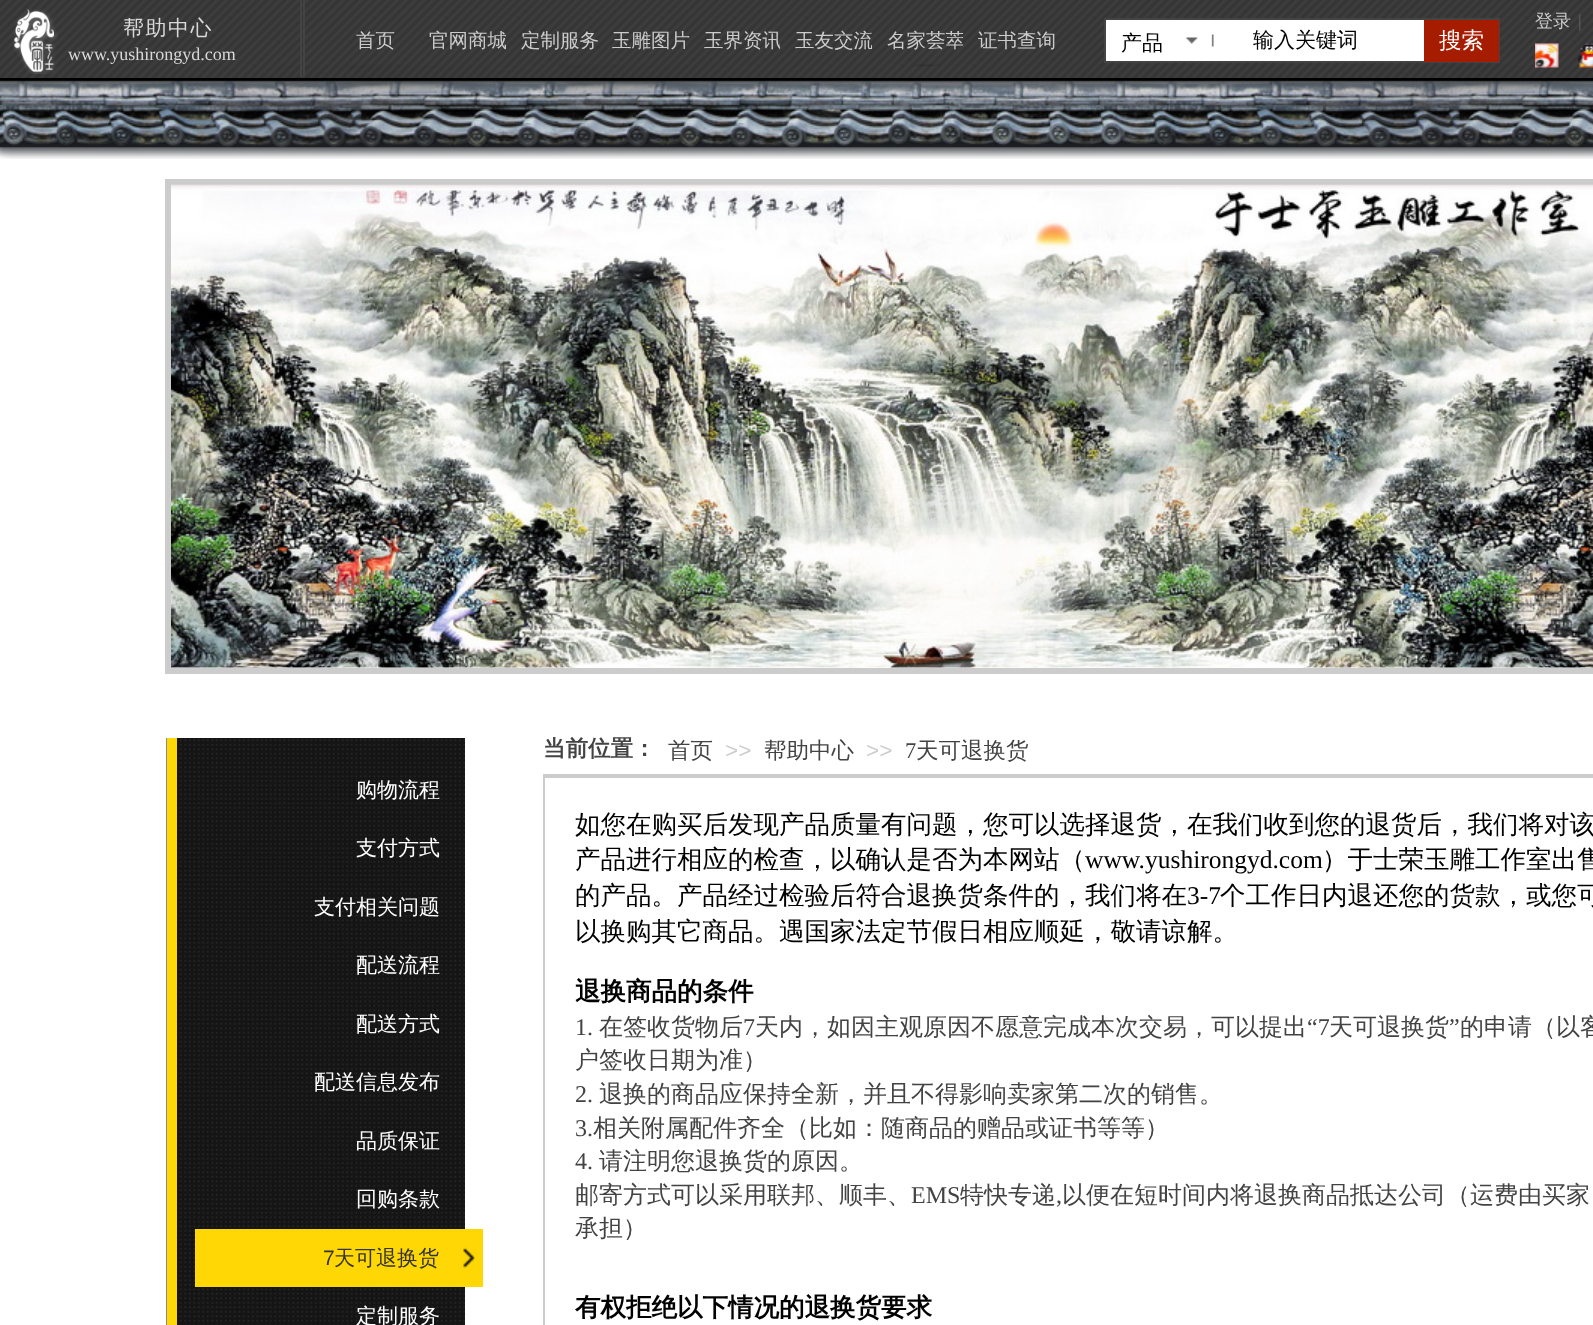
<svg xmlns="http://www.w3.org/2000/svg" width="1593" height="1325">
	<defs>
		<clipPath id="clip1"><rect x="429" y="0" width="77" height="80" /></clipPath>
		<clipPath id="clip2"><rect x="704" y="0" width="76" height="80" /></clipPath>
		<clipPath id="clip3"><rect x="795" y="0" width="77" height="80" /></clipPath>
		<clipPath id="clip4"><rect x="887" y="0" width="76" height="80" /></clipPath>
		<clipPath id="clip5"><rect x="1253" y="27" width="163" height="27" /></clipPath>
	</defs>
	<rect width="100%" height="100%" fill="#FFFFFF" />
	<image x="0" y="64" width="1593" height="83" href="assets/img7.png" />
	<image x="0" y="0" width="1593" height="78" href="assets/img1.png" />
	<image x="13" y="9" width="45" height="65" href="assets/img2.png" />
	<text x="123" y="35" font-family="WenQuanYi Zen Hei" font-size="21" font-weight="500" letter-spacing="1.5" fill="#D9D9D9">帮助中心</text>
	<rect x="300" y="0" width="2" height="77" fill="#434343" />
	<rect x="303" y="0" width="2" height="77" fill="#434343" />
	<text x="356" y="47" font-family="WenQuanYi Zen Hei" font-size="19.5" font-weight="500" fill="#CCCCCC">首页</text>
	<g clip-path="url(#clip1)">
		<text x="429" y="47" font-family="WenQuanYi Zen Hei" font-size="19.5" font-weight="500" fill="#CCCCCC">官网商城</text>
	</g>
	<g font-family="WenQuanYi Zen Hei" font-size="19.5" font-weight="500" fill="#CCCCCC">
		<text x="521" y="47">定制服务</text>
		<text x="612" y="47">玉雕图片</text>
	</g>
	<g clip-path="url(#clip2)">
		<text x="704" y="47" font-family="WenQuanYi Zen Hei" font-size="19.5" font-weight="500" fill="#CCCCCC">玉界资讯</text>
	</g>
	<g clip-path="url(#clip3)">
		<text x="795" y="47" font-family="WenQuanYi Zen Hei" font-size="19.5" font-weight="500" fill="#CCCCCC">玉友交流</text>
	</g>
	<g clip-path="url(#clip4)">
		<text x="887" y="47" font-family="WenQuanYi Zen Hei" font-size="19.5" font-weight="500" fill="#CCCCCC">名家荟萃</text>
	</g>
	<text x="978" y="47" font-family="WenQuanYi Zen Hei" font-size="19.5" font-weight="500" fill="#CCCCCC">证书查询</text>
	<rect x="1106" y="20" width="318" height="41" fill="#FFFFFF" />
	<rect x="1105" y="19" width="394" height="43" fill="none" stroke="#434343" stroke-width="2" />
	<image x="1186" y="34" width="28" height="13" href="assets/img3.png" />
	<text x="1121" y="50" font-family="WenQuanYi Zen Hei" font-size="21" font-weight="500" fill="#000000">产品</text>
	<g clip-path="url(#clip5)">
		<text x="1253" y="47" font-family="WenQuanYi Zen Hei" font-size="21" font-weight="500" fill="#000000">输入关键词</text>
	</g>
	<rect x="1424" y="20" width="75" height="42" fill="#A61C00" />
	<text x="1439" y="48" font-family="WenQuanYi Zen Hei" font-size="22.5" font-weight="500" fill="#FFFFFF">搜索</text>
	<text x="1535" y="27" font-family="WenQuanYi Zen Hei" font-size="18" font-weight="500" fill="#CCCCCC">登录</text>
	<text x="1578" y="27" font-family="Liberation Serif" font-size="18" fill="#666666">|</text>
	<image x="1535" y="43" width="24" height="25" href="assets/img4.png" />
	<image x="1577" y="43" width="16" height="25" href="assets/img5.png" />
	<text x="68" y="60" font-family="Liberation Serif" font-size="18" fill="#D9D9D9">www.yushirongyd.com</text>
	<image x="0" y="78" width="1593" height="15" href="assets/img6.png" />
	<image x="0" y="147" width="1593" height="12" href="assets/img8.png" />
	<rect x="168" y="182" width="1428" height="489" fill="none" stroke="#CCCCCC" stroke-width="6" />
	<image x="171" y="184" width="1422" height="484" href="assets/img9.png" />
	<text x="543" y="756" font-family="WenQuanYi Zen Hei" font-size="22.5" font-weight="700" fill="#434343">当前位置：</text>
	<text x="668" y="758" font-family="WenQuanYi Zen Hei" font-size="22.5" font-weight="500" fill="#434343">首页</text>
	<text x="725" y="758" font-family="Liberation Sans" font-size="22.5" fill="#CCCCCC">&gt;&gt;</text>
	<text x="764" y="758" font-family="WenQuanYi Zen Hei" font-size="22.5" font-weight="500" fill="#434343">帮助中心</text>
	<text x="866" y="758" font-family="Liberation Sans" font-size="22.5" fill="#CCCCCC">&gt;&gt;</text>
	<text x="905" y="758" font-family="Liberation Serif" font-size="22.5" fill="#434343">7</text>
	<text x="916" y="758" font-family="WenQuanYi Zen Hei" font-size="22.5" font-weight="500" fill="#434343">天可退换货</text>
	<rect x="543" y="774" width="1050" height="2" fill="#CCCCCC" />
	<image x="166" y="738" width="299" height="587" href="assets/img10.png" />
	<rect x="167" y="738" width="10" height="587" fill="#FFD704" />
	<g font-family="WenQuanYi Zen Hei" font-size="21" font-weight="500" fill="#FFFFFF">
		<text x="356" y="797">购物流程</text>
		<text x="356" y="855">支付方式</text>
		<text x="314" y="914">支付相关问题</text>
		<text x="356" y="972">配送流程</text>
		<text x="356" y="1031">配送方式</text>
		<text x="314" y="1089">配送信息发布</text>
		<text x="356" y="1148">品质保证</text>
		<text x="356" y="1206">回购条款</text>
	</g>
	<rect x="195" y="1229" width="288" height="58" fill="#FFD704" />
	<image x="463" y="1247" width="12" height="21" href="assets/img11.png" />
	<text x="323" y="1265" font-family="Liberation Sans" font-size="21" fill="#333333">7</text>
	<text x="334" y="1265" font-family="WenQuanYi Zen Hei" font-size="21" font-weight="500" fill="#333333">天可退换货</text>
	<text x="356" y="1323" font-family="WenQuanYi Zen Hei" font-size="21" font-weight="500" fill="#FFFFFF">定制服务</text>
	<rect x="544" y="777" width="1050" height="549" fill="none" stroke="#CCCCCC" stroke-width="2" />
	<g font-family="WenQuanYi Zen Hei" font-size="25.5" font-weight="500" fill="#000000">
		<text x="575" y="833">如您在购买后发现产品质量有问题，您可以选择退货，在我们收到您的退货后，我们将对该</text>
		<text x="575" y="868">产品进行相应的检查，以确认是否为本网站（</text>
	</g>
	<text x="1085" y="868" font-family="Liberation Serif" font-size="25.5" fill="#000000">www.yushirongyd.com</text>
	<g font-family="WenQuanYi Zen Hei" font-size="25.5" font-weight="500" fill="#000000">
		<text x="1322" y="868">）于士荣玉雕工作室出售</text>
		<text x="575" y="904">的产品。产品经过检验后符合退换货条件的，我们将在</text>
	</g>
	<text x="1187" y="904" font-family="Liberation Serif" font-size="25.5" fill="#000000">3-7</text>
	<g font-family="WenQuanYi Zen Hei" font-size="25.5" font-weight="500" fill="#000000">
		<text x="1220" y="904">个工作日内退还您的货款，或您可</text>
		<text x="575" y="940">以换购其它商品。遇国家法定节假日相应顺延，敬请谅解。</text>
	</g>
	<text x="575" y="1000" font-family="WenQuanYi Zen Hei" font-size="25.5" font-weight="700" fill="#000000">退换商品的条件</text>
	<text x="575" y="1035" font-family="Liberation Serif" font-size="24" fill="#434343">1.</text>
	<text x="599" y="1035" font-family="WenQuanYi Zen Hei" font-size="24" font-weight="500" fill="#434343">在签收货物后</text>
	<text x="743" y="1035" font-family="Liberation Serif" font-size="24" fill="#434343">7</text>
	<text x="755" y="1035" font-family="WenQuanYi Zen Hei" font-size="24" font-weight="500" fill="#434343">天内，如因主观原因不愿意完成本次交易，可以提出</text>
	<text x="1307" y="1035" font-family="Liberation Serif" font-size="24" fill="#434343">“7</text>
	<text x="1329" y="1035" font-family="WenQuanYi Zen Hei" font-size="24" font-weight="500" fill="#434343">天可退换货</text>
	<text x="1449" y="1035" font-family="Liberation Serif" font-size="24" fill="#434343">”</text>
	<g font-family="WenQuanYi Zen Hei" font-size="24" font-weight="500" fill="#434343">
		<text x="1460" y="1035">的申请（以客</text>
		<text x="575" y="1068">户签收日期为准）</text>
	</g>
	<text x="575" y="1102" font-family="Liberation Serif" font-size="24" fill="#434343">2.</text>
	<text x="599" y="1102" font-family="WenQuanYi Zen Hei" font-size="24" font-weight="500" fill="#434343">退换的商品应保持全新，并且不得影响卖家第二次的销售。</text>
	<text x="575" y="1136" font-family="Liberation Serif" font-size="24" fill="#434343">3.</text>
	<text x="593" y="1136" font-family="WenQuanYi Zen Hei" font-size="24" font-weight="500" fill="#434343">相关附属配件齐全（比如：随商品的赠品或证书等等）</text>
	<text x="575" y="1169" font-family="Liberation Serif" font-size="24" fill="#434343">4.</text>
	<g font-family="WenQuanYi Zen Hei" font-size="24" font-weight="500" fill="#434343">
		<text x="599" y="1169">请注明您退换货的原因。</text>
		<text x="575" y="1203">邮寄方式可以采用联邦、顺丰、</text>
	</g>
	<text x="911" y="1203" font-family="Liberation Serif" font-size="24" fill="#434343">EMS</text>
	<text x="960" y="1203" font-family="WenQuanYi Zen Hei" font-size="24" font-weight="500" fill="#434343">特快专递</text>
	<text x="1056" y="1203" font-family="Liberation Serif" font-size="24" fill="#434343">,</text>
	<g font-family="WenQuanYi Zen Hei" font-size="24" font-weight="500" fill="#434343">
		<text x="1062" y="1203">以便在短时间内将退换商品抵达公司（运费由买家</text>
		<text x="575" y="1236">承担）</text>
	</g>
	<text x="575" y="1316" font-family="WenQuanYi Zen Hei" font-size="25.5" font-weight="700" fill="#000000">有权拒绝以下情况的退换货要求</text>
</svg>
